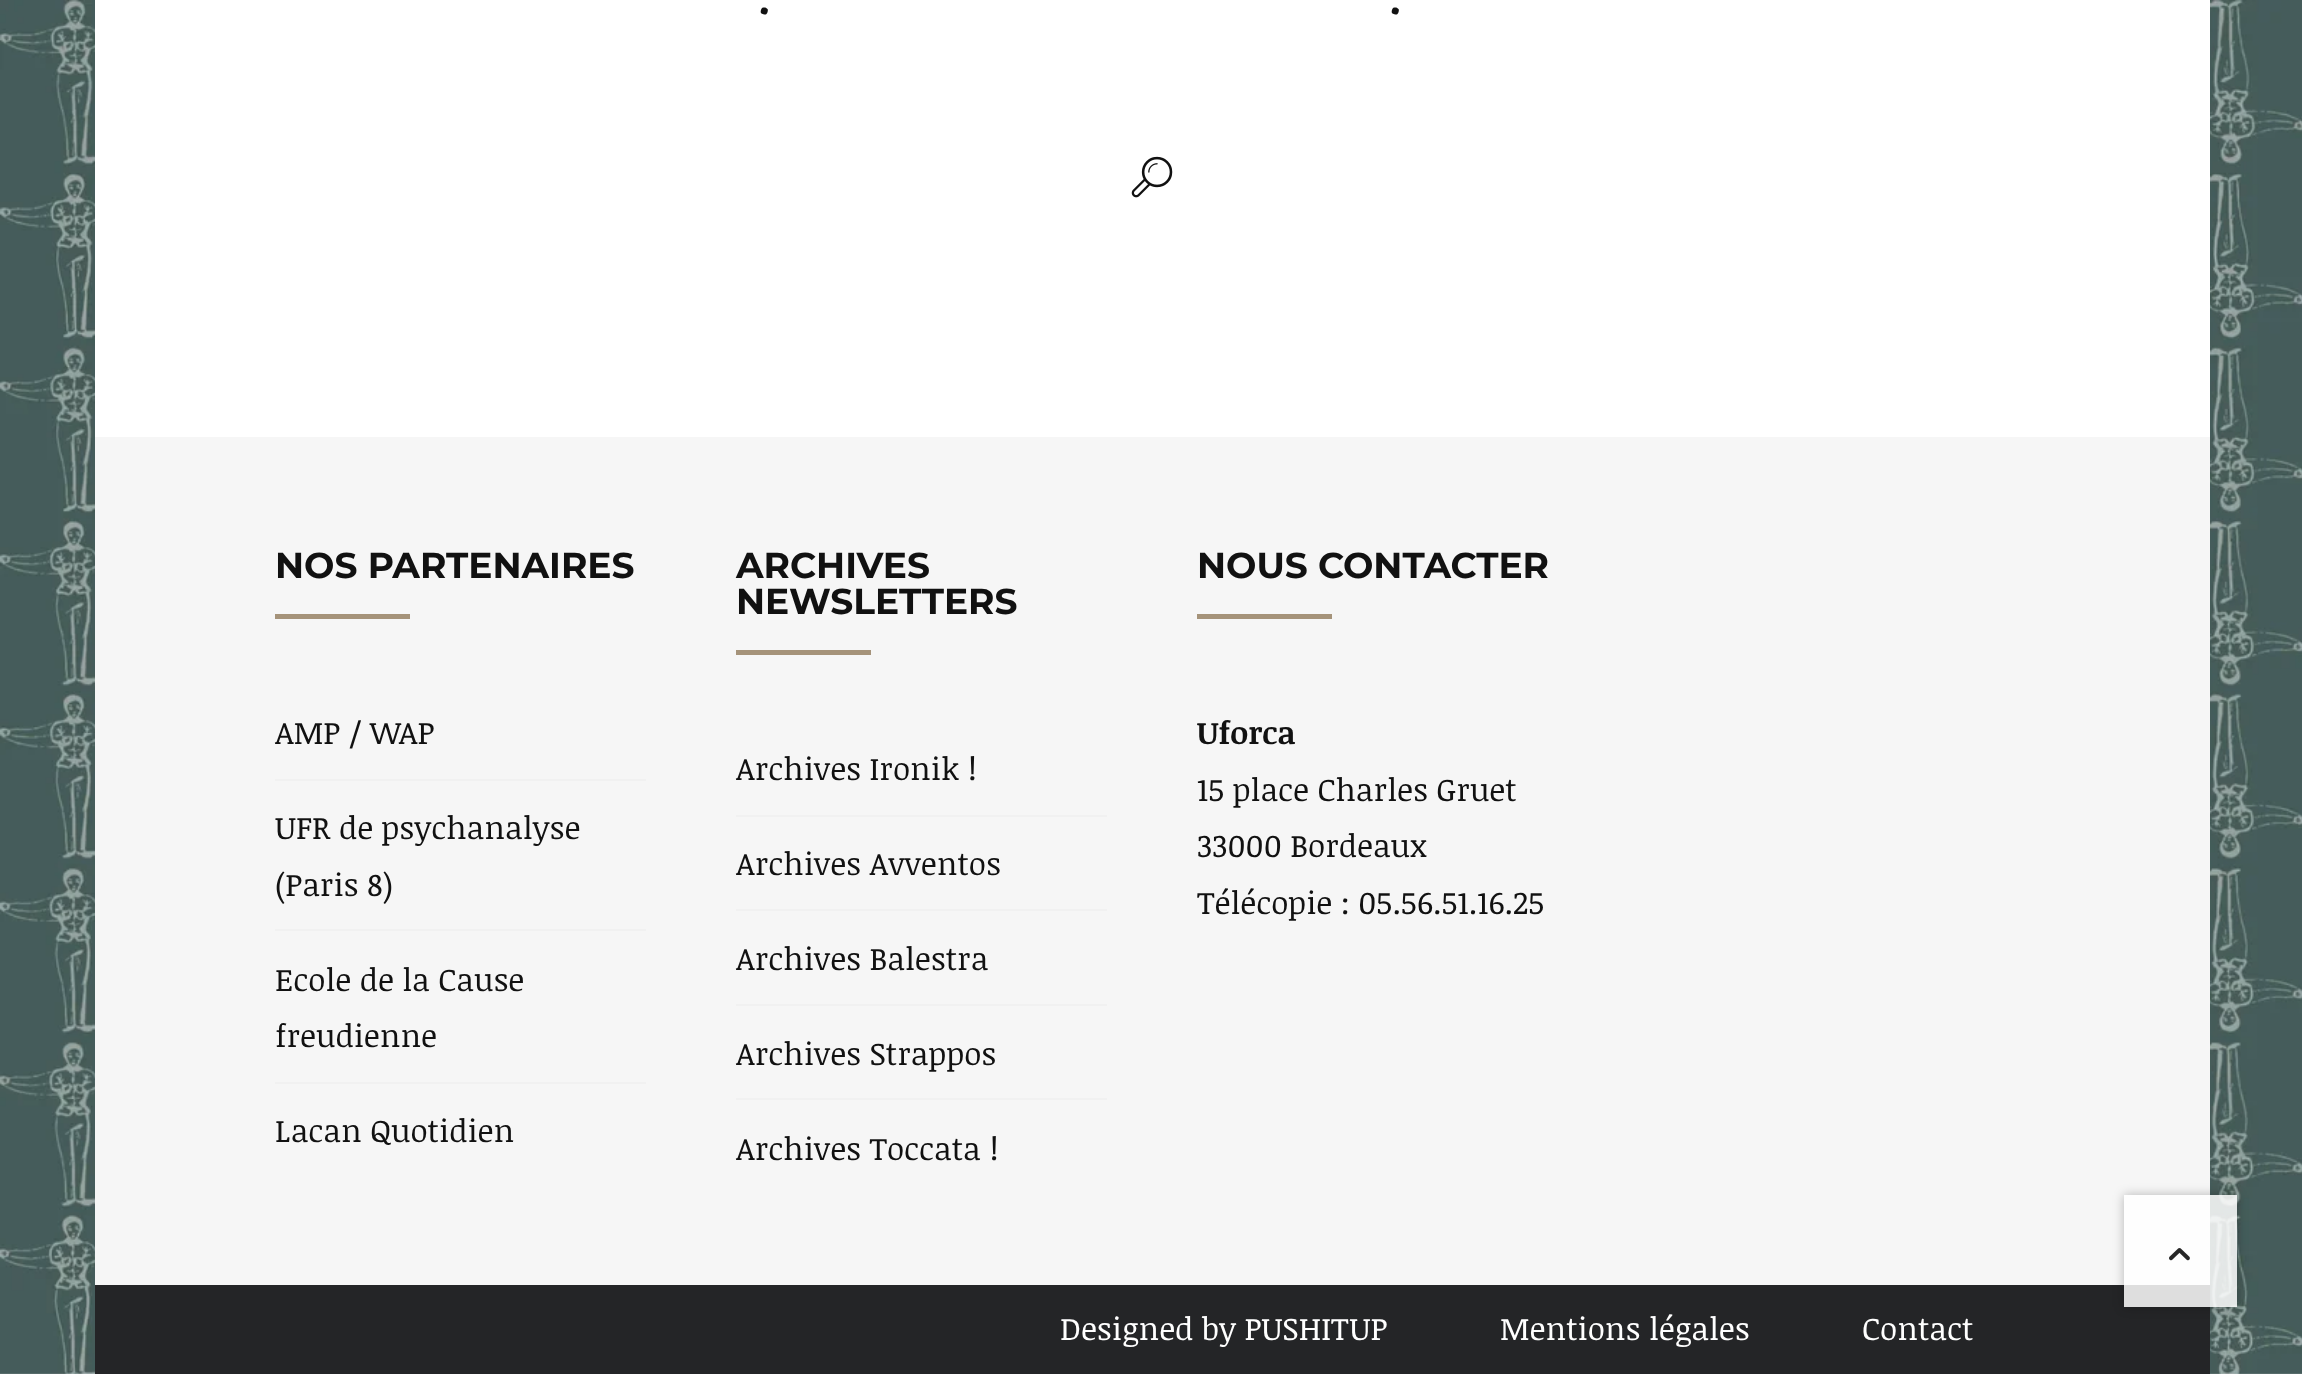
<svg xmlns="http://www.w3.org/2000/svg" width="2302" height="1374">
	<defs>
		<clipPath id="clip1"><path d="M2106 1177H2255V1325H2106ZM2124 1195H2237V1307H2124Z" clip-rule="evenodd" /></clipPath>
	</defs>
	<rect width="100%" height="100%" fill="#FFFFFF" />
	<image x="0" y="0" width="2302" height="1374" href="assets/img1.png" />
	<rect x="95" y="0" width="2115" height="437" fill="#FFFFFF" />
	<g font-family="Noticia Text" font-size="54" fill="#111111">
		<text x="757" y="14">.</text>
		<text x="1388" y="14">.</text>
	</g>
	<image x="1131" y="156" width="42" height="42" href="assets/img2.png" />
	<rect x="95" y="437" width="2115" height="848" fill="#F6F6F6" />
	<text x="275" y="578" font-family="Montserrat" font-size="36" font-weight="100" fill="#111111">NOS PARTENAIRES</text>
	<rect x="275" y="614" width="135" height="5" fill="#A5937A" />
	<rect x="275" y="779" width="371" height="2" fill="#F1F1F1" />
	<text x="275" y="744" font-family="Noticia Text" font-size="31.5" fill="#111111">AMP / WAP</text>
	<rect x="275" y="929" width="371" height="2" fill="#F1F1F1" />
	<g font-family="Noticia Text" font-size="31.5" fill="#111111">
		<text x="275" y="839">UFR de psychanalyse</text>
		<text x="275" y="896">(Paris 8)</text>
	</g>
	<rect x="275" y="1082" width="371" height="2" fill="#F1F1F1" />
	<g font-family="Noticia Text" font-size="31.5" fill="#111111">
		<text x="275" y="991">Ecole de la Cause</text>
		<text x="275" y="1047">freudienne</text>
		<text x="275" y="1142">Lacan Quotidien</text>
	</g>
	<g font-family="Montserrat" font-size="36" font-weight="100" fill="#111111">
		<text x="736" y="578">ARCHIVES</text>
		<text x="736" y="614">NEWSLETTERS</text>
	</g>
	<rect x="736" y="650" width="135" height="5" fill="#A5937A" />
	<rect x="736" y="815" width="371" height="2" fill="#F1F1F1" />
	<text x="736" y="780" font-family="Noticia Text" font-size="31.5" fill="#111111">Archives Ironik !</text>
	<rect x="736" y="909" width="371" height="2" fill="#F1F1F1" />
	<text x="736" y="875" font-family="Noticia Text" font-size="31.5" fill="#111111">Archives Avventos</text>
	<rect x="736" y="1004" width="371" height="2" fill="#F1F1F1" />
	<text x="736" y="970" font-family="Noticia Text" font-size="31.5" fill="#111111">Archives Balestra</text>
	<rect x="736" y="1098" width="371" height="2" fill="#F1F1F1" />
	<g font-family="Noticia Text" font-size="31.5" fill="#111111">
		<text x="736" y="1065">Archives Strappos</text>
		<text x="736" y="1160">Archives Toccata !</text>
	</g>
	<text x="1197" y="578" font-family="Montserrat" font-size="36" font-weight="100" fill="#111111">NOUS CONTACTER</text>
	<rect x="1197" y="614" width="135" height="5" fill="#A5937A" />
	<text x="1197" y="744" font-family="Noticia Text" font-size="31.5" font-weight="700" fill="#111111">Uforca</text>
	<g font-family="Noticia Text" font-size="31.5" fill="#111111">
		<text x="1197" y="801">15 place Charles Gruet</text>
		<text x="1197" y="857">33000 Bordeaux</text>
		<text x="1197" y="914">Télécopie : 05.56.51.16.25</text>
	</g>
	<rect x="95" y="1285" width="2115" height="89" fill="#242527" />
	<g font-family="Noticia Text" font-size="31.5" fill="#FFFFFF">
		<text x="1060" y="1340">Designed by PUSHITUP</text>
		<text x="1500" y="1340">Mentions légales</text>
		<text x="1862" y="1340">Contact</text>
	</g>
	<g clip-path="url(#clip1)">
		<rect x="2124" y="1195" width="113" height="112" fill="#000000" fill-opacity="0.26" filter="blur(5.5px)" />
	</g>
	<rect x="2124" y="1195" width="113" height="112" fill="#FFFFFF" fill-opacity="0.85" />
	<image x="2169" y="1248" width="21" height="13" href="assets/img3.png" />
</svg>
